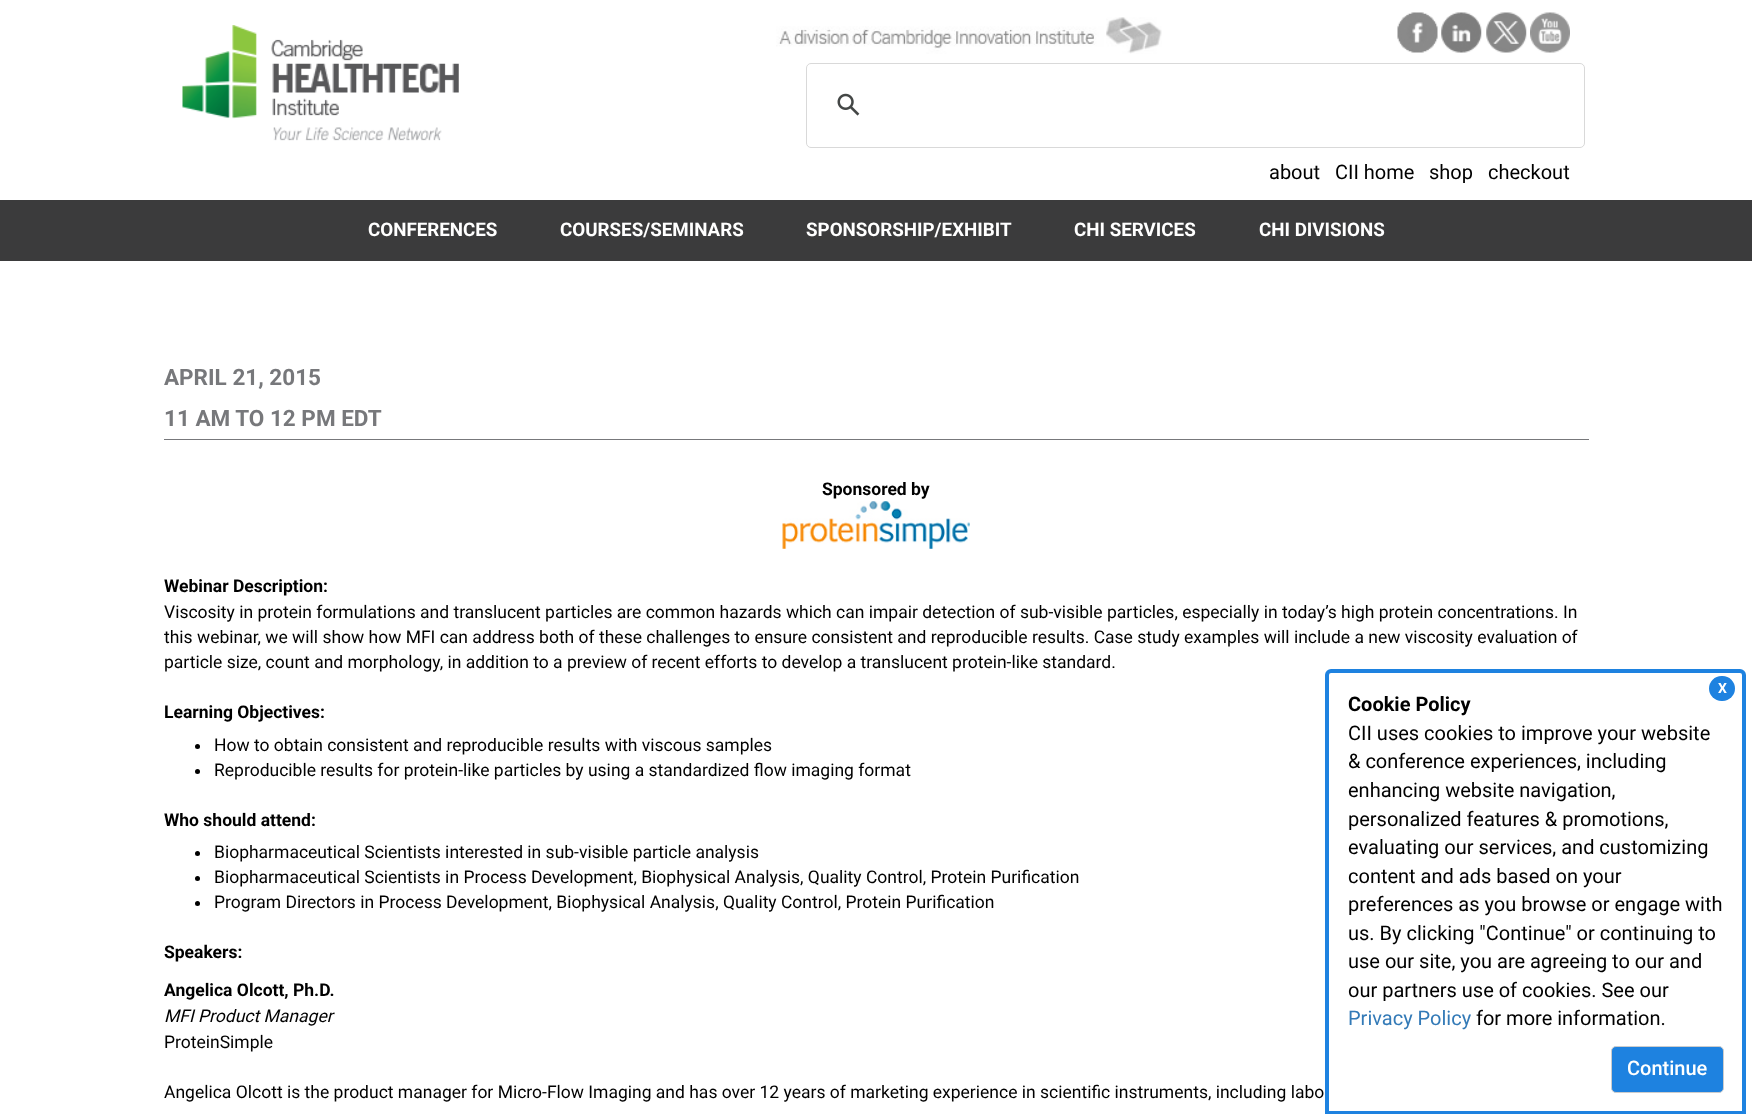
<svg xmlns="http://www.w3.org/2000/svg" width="1752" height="1114">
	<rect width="100%" height="100%" fill="#FFFFFF" />
	<image x="182" y="25" width="277" height="116" href="assets/img1.png" />
	<image x="776" y="17" width="386" height="37" href="assets/img2.png" />
	<image x="1397" y="12" width="41" height="41" href="assets/img3.png" />
	<image x="1441" y="12" width="41" height="41" href="assets/img4.png" />
	<image x="1486" y="12" width="41" height="41" href="assets/img5.png" />
	<image x="1530" y="12" width="40" height="41" href="assets/img6.png" />
	<rect x="806.5" y="63.5" width="778" height="84" rx="4.5" fill="none" stroke="#D9D9D9" />
	<image x="837" y="93" width="23" height="23" href="assets/img7.png" />
	<g font-family="Roboto" font-size="20" fill="#000000">
		<text x="1269" y="179">about</text>
		<text x="1335" y="179">CII home</text>
		<text x="1429" y="179">shop</text>
		<text x="1488" y="179">checkout</text>
	</g>
	<rect x="0" y="200" width="1752" height="61" fill="#3B3B3C" />
	<g font-family="Roboto" font-size="18.75" font-weight="700" fill="#FFFFFF">
		<text x="368" y="236">CONFERENCES</text>
		<text x="560" y="236">COURSES/SEMINARS</text>
		<text x="806" y="236">SPONSORSHIP/EXHIBIT</text>
		<text x="1074" y="236">CHI SERVICES</text>
		<text x="1259" y="236">CHI DIVISIONS</text>
	</g>
	<rect x="164" y="439" width="1425" height="1" fill="#77787B" />
	<g font-family="Roboto" font-size="22.5" font-weight="700" fill="#77787B">
		<text x="164" y="385">APRIL 21, 2015</text>
		<text x="164" y="426">11 AM TO 12 PM EDT</text>
	</g>
	<text x="822" y="495" font-family="Roboto" font-size="17.5" font-weight="700" fill="#000000">Sponsored by</text>
	<image x="782" y="501" width="188" height="48" href="assets/img8.png" />
	<text x="164" y="592" font-family="Roboto" font-size="17.5" font-weight="700" fill="#000000">Webinar Description:</text>
	<g font-family="Roboto" font-size="17.5" fill="#000000">
		<text x="164" y="618">Viscosity in protein formulations and translucent particles are common hazards which can impair detection of sub-visible particles, especially in today’s high protein concentrations. In</text>
		<text x="164" y="643">this webinar, we will show how MFI can address both of these challenges to ensure consistent and reproducible results. Case study examples will include a new viscosity evaluation of</text>
		<text x="164" y="668">particle size, count and morphology, in addition to a preview of recent efforts to develop a translucent protein-like standard.</text>
	</g>
	<text x="164" y="718" font-family="Roboto" font-size="17.5" font-weight="700" fill="#000000">Learning Objectives:</text>
	<circle cx="197.5" cy="746.5" r="2.5" fill="#000000" />
	<text x="214" y="751" font-family="Roboto" font-size="17.5" fill="#000000">How to obtain consistent and reproducible results with viscous samples</text>
	<circle cx="197.5" cy="771.5" r="2.5" fill="#000000" />
	<text x="214" y="776" font-family="Roboto" font-size="17.5" fill="#000000">Reproducible results for protein-like particles by using a standardized flow imaging format</text>
	<text x="164" y="826" font-family="Roboto" font-size="17.5" font-weight="700" fill="#000000">Who should attend:</text>
	<circle cx="197.5" cy="853.5" r="2.5" fill="#000000" />
	<text x="214" y="858" font-family="Roboto" font-size="17.5" fill="#000000">Biopharmaceutical Scientists interested in sub-visible particle analysis</text>
	<circle cx="197.5" cy="878.5" r="2.5" fill="#000000" />
	<text x="214" y="883" font-family="Roboto" font-size="17.5" fill="#000000">Biopharmaceutical Scientists in Process Development, Biophysical Analysis, Quality Control, Protein Purification</text>
	<circle cx="197.5" cy="903.5" r="2.5" fill="#000000" />
	<text x="214" y="908" font-family="Roboto" font-size="17.5" fill="#000000">Program Directors in Process Development, Biophysical Analysis, Quality Control, Protein Purification</text>
	<g font-family="Roboto" font-size="17.5" font-weight="700" fill="#000000">
		<text x="164" y="958">Speakers:</text>
		<text x="164" y="996">Angelica Olcott, Ph.D.</text>
	</g>
	<text x="164" y="1022" font-family="Roboto" font-size="17.5" font-style="italic" fill="#000000">MFI Product Manager</text>
	<g font-family="Roboto" font-size="17.5" fill="#000000">
		<text x="164" y="1048">ProteinSimple</text>
		<text x="164" y="1098">Angelica Olcott is the product manager for Micro-Flow Imaging and has over 12 years of marketing experience in scientific instruments, including labo</text>
	</g>
	<path d="M1331 671H1740C1742 671 1744 673 1744 675V1113H1327V675C1327 673 1329 671 1331 671Z" fill="none" stroke="#1E82E0" stroke-width="4" />
	<rect x="1709" y="676" width="26" height="25" rx="12.5" fill="#1E82E0" />
	<text x="1718" y="693" font-family="Roboto" font-size="14" font-weight="700" fill="#FFFFFF">X</text>
	<text x="1348" y="711" font-family="Roboto" font-size="20" font-weight="700" fill="#000000">Cookie Policy</text>
	<g font-family="Roboto" font-size="20" fill="#000000">
		<text x="1348" y="740">CII uses cookies to improve your website</text>
		<text x="1348" y="768">&amp; conference experiences, including</text>
		<text x="1348" y="797">enhancing website navigation,</text>
		<text x="1348" y="826">personalized features &amp; promotions,</text>
		<text x="1348" y="854">evaluating our services, and customizing</text>
		<text x="1348" y="883">content and ads based on your</text>
		<text x="1348" y="911">preferences as you browse or engage with</text>
		<text x="1348" y="940">us. By clicking "Continue" or continuing to</text>
		<text x="1348" y="968">use our site, you are agreeing to our and</text>
		<text x="1348" y="997">our partners use of cookies. See our</text>
	</g>
	<text x="1348" y="1025" font-family="Roboto" font-size="20" fill="#337AB7">Privacy Policy</text>
	<text x="1476" y="1025" font-family="Roboto" font-size="20" fill="#000000">for more information.</text>
	<rect x="1611.5" y="1046.5" width="112" height="46" rx="4.5" fill="#1E82E0" stroke="#CCCCCC" />
	<text x="1627" y="1075" font-family="Roboto" font-size="20" font-weight="500" fill="#FFFFFF">Continue</text>
</svg>
